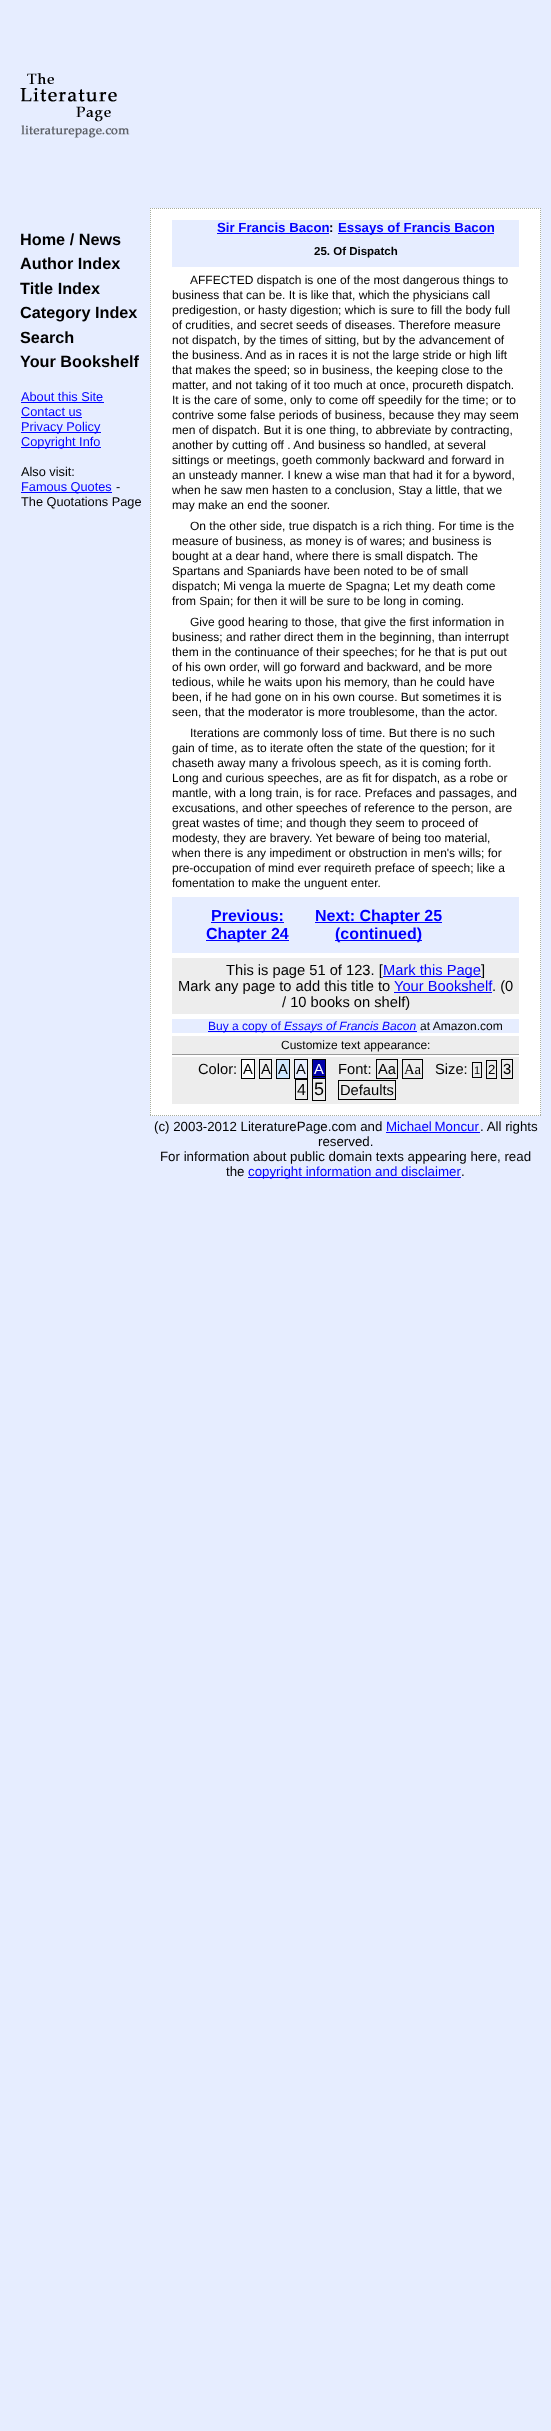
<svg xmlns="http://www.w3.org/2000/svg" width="551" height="2431">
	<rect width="100%" height="100%" fill="#E6EDFF" />
	<image x="20" y="73" width="110" height="65" href="assets/img1.png" />
	<g font-family="Liberation Sans" font-size="16.25" font-weight="700" fill="#000000">
		<text x="20" y="245">Home / News</text>
		<text x="20" y="269">Author Index</text>
		<text x="20" y="294">Title Index</text>
		<text x="20" y="318">Category Index</text>
		<text x="20" y="343">Search</text>
		<text x="20" y="367">Your Bookshelf</text>
	</g>
	<text x="21" y="401" font-family="Liberation Sans" font-size="12.75" fill="#0000FF">About this Site</text>
	<rect x="21" y="402" width="83" height="1" fill="#0000FF" />
	<text x="21" y="416" font-family="Liberation Sans" font-size="12.75" fill="#0000FF">Contact us</text>
	<rect x="21" y="417" width="61" height="1" fill="#0000FF" />
	<rect x="21" y="432" width="80" height="1" fill="#0000FF" />
	<text x="21" y="431" font-family="Liberation Sans" font-size="12.75" fill="#0000FF">Privacy Policy</text>
	<rect x="21" y="447" width="80" height="1" fill="#0000FF" />
	<text x="21" y="446" font-family="Liberation Sans" font-size="12.75" fill="#0000FF">Copyright Info</text>
	<text x="21" y="476" font-family="Liberation Sans" font-size="12.75" fill="#000000">Also visit:</text>
	<rect x="21" y="492" width="91" height="1" fill="#0000FF" />
	<text x="21" y="491" font-family="Liberation Sans" font-size="12.75" fill="#0000FF">Famous Quotes</text>
	<g font-family="Liberation Sans" font-size="12.75" fill="#000000">
		<text x="116" y="491">-</text>
		<text x="21" y="506">The Quotations Page</text>
	</g>
	<rect x="150" y="208" width="391" height="908" fill="#FFFFFF" />
	<path d="M150 208.5H541" fill="none" stroke="#A6AD9F" stroke-dasharray="1 1" />
	<path d="M540.5 208V1116" fill="none" stroke="#A6AD9F" stroke-dasharray="1 1" />
	<path d="M150 1115.5H541" fill="none" stroke="#A6AD9F" stroke-dasharray="1 1" />
	<path d="M150.5 208V1116" fill="none" stroke="#A6AD9F" stroke-dasharray="1 1" />
	<rect x="172" y="220" width="347" height="47" fill="#E6EDFF" />
	<text x="217" y="232" font-family="Liberation Sans" font-size="13.25" font-weight="700" fill="#0000FF">Sir Francis Bacon</text>
	<rect x="217" y="233" width="112" height="1" fill="#0000FF" />
	<text x="329" y="232" font-family="Liberation Sans" font-size="13.25" font-weight="700" fill="#000000">:</text>
	<rect x="338" y="233" width="156" height="1" fill="#0000FF" />
	<text x="338" y="232" font-family="Liberation Sans" font-size="13.25" font-weight="700" fill="#0000FF">Essays of Francis Bacon</text>
	<text x="314" y="255" font-family="Liberation Sans" font-size="11.5" font-weight="700" fill="#000000">25. Of Dispatch</text>
	<g font-family="Liberation Sans" font-size="12" fill="#000000">
		<text x="190" y="284">AFFECTED dispatch is one of the most dangerous things to</text>
		<text x="172" y="299">business that can be. It is like that, which the physicians call</text>
		<text x="172" y="314">predigestion, or hasty digestion; which is sure to fill the body full</text>
		<text x="172" y="329">of crudities, and secret seeds of diseases. Therefore measure</text>
		<text x="172" y="344">not dispatch, by the times of sitting, but by the advancement of</text>
		<text x="172" y="359">the business.</text>
		<text x="245" y="359">And as in races it is not the large stride or high lift</text>
		<text x="172" y="374">that makes the speed; so in business, the keeping close to the</text>
		<text x="172" y="389">matter, and not taking of it too much at once, procureth dispatch.</text>
		<text x="172" y="404">It is the care of some, only to come off speedily for the time; or to</text>
		<text x="172" y="419">contrive some false periods of business, because they may seem</text>
		<text x="172" y="434">men of dispatch. But it is one thing, to abbreviate by contracting,</text>
		<text x="172" y="449">another by cutting off . And business so handled, at several</text>
		<text x="172" y="464">sittings or meetings, goeth commonly backward and forward in</text>
		<text x="172" y="479">an unsteady manner. I knew a wise man that had it for a byword,</text>
		<text x="172" y="494">when he saw men hasten to a conclusion, Stay a little, that we</text>
		<text x="172" y="509">may make an end the sooner.</text>
		<text x="190" y="530">On the other side, true dispatch is a rich thing. For time is the</text>
		<text x="172" y="545">measure of business, as money is of wares; and business is</text>
		<text x="172" y="560">bought at a dear hand, where there is small dispatch. The</text>
		<text x="172" y="575">Spartans and Spaniards have been noted to be of small</text>
		<text x="172" y="590">dispatch; Mi venga la muerte de Spagna; Let my death come</text>
		<text x="172" y="605">from Spain; for then it will be sure to be long in coming.</text>
		<text x="190" y="626">Give good hearing to those, that give the first information in</text>
		<text x="172" y="641">business; and rather direct them in the beginning, than interrupt</text>
		<text x="172" y="656">them in the continuance of their speeches; for he that is put out</text>
		<text x="172" y="671">of his own order, will go forward and backward, and be more</text>
		<text x="172" y="686">tedious, while he waits upon his memory, than he could have</text>
		<text x="172" y="701">been, if he had gone on in his own course. But sometimes it is</text>
		<text x="172" y="716">seen, that the moderator is more troublesome, than the actor.</text>
		<text x="190" y="737">Iterations are commonly loss of time. But there is no such</text>
		<text x="172" y="752">gain of time, as to iterate often the state of the question; for it</text>
		<text x="172" y="767">chaseth away many a frivolous speech, as it is coming forth.</text>
		<text x="172" y="782">Long and curious speeches, are as fit for dispatch, as a robe or</text>
		<text x="172" y="797">mantle, with a long train, is for race. Prefaces and passages, and</text>
		<text x="172" y="812">excusations, and other speeches of reference to the person, are</text>
		<text x="172" y="827">great wastes of time; and though they seem to proceed of</text>
		<text x="172" y="842">modesty, they are bravery. Yet beware of being too material,</text>
		<text x="172" y="857">when there is any impediment or obstruction in men's wills; for</text>
		<text x="172" y="872">pre-occupation of mind ever requireth preface of speech; like a</text>
		<text x="172" y="887">fomentation to make the unguent enter.</text>
	</g>
	<rect x="172" y="897" width="347" height="56" fill="#E6EDFF" />
	<text x="211" y="921" font-family="Liberation Sans" font-size="16" font-weight="700" fill="#0000FF">Previous:</text>
	<rect x="211" y="922" width="73" height="1" fill="#0000FF" />
	<rect x="206" y="940" width="83" height="1" fill="#0000FF" />
	<text x="206" y="939" font-family="Liberation Sans" font-size="16" font-weight="700" fill="#0000FF">Chapter 24</text>
	<rect x="315" y="922" width="127" height="1" fill="#0000FF" />
	<text x="315" y="921" font-family="Liberation Sans" font-size="16" font-weight="700" fill="#0000FF">Next: Chapter 25</text>
	<rect x="335" y="940" width="87" height="1" fill="#0000FF" />
	<text x="335" y="939" font-family="Liberation Sans" font-size="16" font-weight="700" fill="#0000FF">(continued)</text>
	<rect x="172" y="958" width="347" height="56" fill="#EDEDED" />
	<text x="226" y="975" font-family="Liberation Sans" font-size="14.7" fill="#000000">This is page 51 of 123. [</text>
	<rect x="383" y="976" width="98" height="1" fill="#0000FF" />
	<text x="383" y="975" font-family="Liberation Sans" font-size="14.7" fill="#0000FF">Mark this Page</text>
	<g font-family="Liberation Sans" font-size="14.7" fill="#000000">
		<text x="481" y="975">]</text>
		<text x="178" y="991">Mark any page to add this title to</text>
	</g>
	<text x="394" y="991" font-family="Liberation Sans" font-size="14.7" fill="#0000FF">Your Bookshelf</text>
	<rect x="394" y="992" width="98" height="1" fill="#0000FF" />
	<g font-family="Liberation Sans" font-size="14.7" fill="#000000">
		<text x="492" y="991">. (0</text>
		<text x="282" y="1007">/ 10 books on shelf)</text>
	</g>
	<rect x="172" y="1019" width="347" height="14" fill="#E6EDFF" />
	<rect x="208" y="1031" width="209" height="1" fill="#0000FF" />
	<text x="208" y="1030" font-family="Liberation Sans" font-size="12" fill="#0000FF">Buy a copy of</text>
	<text x="284" y="1030" font-family="Liberation Sans" font-size="12" font-style="italic" fill="#0000FF">Essays of Francis Bacon</text>
	<text x="420" y="1030" font-family="Liberation Sans" font-size="12" fill="#000000">at Amazon.com</text>
	<rect x="172" y="1036" width="347" height="18" fill="#EDEDED" />
	<rect x="172" y="1054" width="347" height="1" fill="#999999" />
	<text x="281" y="1049" font-family="Liberation Sans" font-size="12" fill="#000000">Customize text appearance:</text>
	<rect x="172" y="1057" width="347" height="47" fill="#EDEDED" />
	<text x="198" y="1074" font-family="Liberation Sans" font-size="14.7" fill="#000000">Color:</text>
	<rect x="241.5" y="1059.5" width="13" height="19" fill="#FFFFFF" stroke="#000000" />
	<text x="243" y="1074" font-family="Liberation Sans" font-size="14.7" fill="#000000">A</text>
	<rect x="259.5" y="1059.5" width="12" height="19" fill="#F0F0F0" stroke="#000000" />
	<text x="261" y="1074" font-family="Liberation Sans" font-size="14.7" fill="#000000">A</text>
	<rect x="276.5" y="1059.5" width="13" height="19" fill="#CEE7FF" stroke="#000000" />
	<text x="278" y="1074" font-family="Liberation Sans" font-size="14.7" fill="#000000">A</text>
	<rect x="294.5" y="1059.5" width="13" height="19" fill="#E6EDFF" stroke="#000000" />
	<text x="296" y="1074" font-family="Liberation Sans" font-size="14.7" fill="#000000">A</text>
	<rect x="312.5" y="1059.5" width="13" height="19" fill="#0000AA" stroke="#000000" />
	<text x="314" y="1074" font-family="Liberation Sans" font-size="14.7" fill="#FFFFFF">A</text>
	<text x="338" y="1074" font-family="Liberation Sans" font-size="14.7" fill="#000000">Font:</text>
	<rect x="376.5" y="1059.5" width="21" height="19" fill="none" stroke="#000000" />
	<text x="378" y="1074" font-family="Liberation Sans" font-size="14.7" fill="#000000">Aa</text>
	<rect x="402.5" y="1059.5" width="20" height="19" fill="none" stroke="#000000" />
	<text x="404" y="1074" font-family="Liberation Serif" font-size="14.7" fill="#000000">Aa</text>
	<text x="435" y="1074" font-family="Liberation Sans" font-size="14.7" fill="#000000">Size:</text>
	<rect x="472.5" y="1062.5" width="9" height="15" fill="none" stroke="#000000" />
	<text x="474" y="1074" font-family="Liberation Sans" font-size="11" fill="#000000">1</text>
	<rect x="486.5" y="1060.5" width="10" height="18" fill="none" stroke="#000000" />
	<text x="488" y="1074" font-family="Liberation Sans" font-size="13.25" fill="#000000">2</text>
	<rect x="501.5" y="1059.5" width="11" height="19" fill="none" stroke="#000000" />
	<text x="503" y="1074" font-family="Liberation Sans" font-size="14.7" fill="#000000">3</text>
	<rect x="295.5" y="1079.5" width="12" height="20" fill="none" stroke="#000000" />
	<text x="297" y="1095" font-family="Liberation Sans" font-size="16" fill="#000000">4</text>
	<rect x="312.5" y="1076.5" width="13" height="24" fill="none" stroke="#000000" />
	<text x="314" y="1095" font-family="Liberation Sans" font-size="18" fill="#000000">5</text>
	<rect x="338.5" y="1080.5" width="57" height="19" fill="none" stroke="#000000" />
	<text x="340" y="1095" font-family="Liberation Sans" font-size="14.7" fill="#000000">Defaults</text>
	<text x="154" y="1131" font-family="Liberation Sans" font-size="13.3" fill="#000000">(c) 2003-2012 LiteraturePage.com and</text>
	<text x="386" y="1131" word-spacing="-1" font-family="Liberation Sans" font-size="13.3" fill="#0000FF">Michael Moncur</text>
	<text x="480" y="1131" font-family="Liberation Sans" font-size="13.3" fill="#000000">. All rights</text>
	<rect x="386" y="1132" width="94" height="1" fill="#0000FF" />
	<g font-family="Liberation Sans" font-size="13.3" fill="#000000">
		<text x="318" y="1146">reserved.</text>
		<text x="160" y="1161">For information about public domain texts appearing here, read</text>
		<text x="226" y="1176">the</text>
	</g>
	<rect x="248" y="1177" width="213" height="1" fill="#0000FF" />
	<text x="248" y="1176" font-family="Liberation Sans" font-size="13.3" fill="#0000FF">copyright information and disclaimer</text>
	<text x="461" y="1176" font-family="Liberation Sans" font-size="13.3" fill="#000000">.</text>
</svg>
